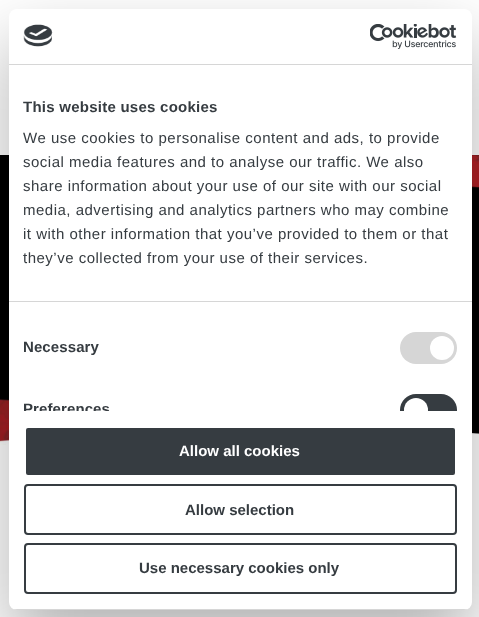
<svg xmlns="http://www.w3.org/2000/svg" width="479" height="617">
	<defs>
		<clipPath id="clip1"><rect x="9" y="65" width="463" height="346" /></clipPath>
		<clipPath id="clip2"><rect x="9" y="9" width="463" height="601" rx="8" /></clipPath>
	</defs>
	<rect width="100%" height="100%" fill="#FFFFFF" />
	<image x="0" y="155" width="479" height="36" href="assets/img3.png" />
	<rect x="0" y="191" width="479" height="207" fill="#000000" />
	<image x="0" y="398" width="479" height="47" href="assets/img4.png" />
	<rect x="104" y="155" width="375" height="1" fill="#000000" fill-opacity="0.1" />
	<rect x="9" y="41" width="463" height="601" rx="8" fill="#000000" fill-opacity="0.3" filter="blur(34px)" />
	<rect x="9" y="9" width="463" height="601" rx="8" fill="#FFFFFF" />
	<rect x="9" y="64" width="463" height="1" fill="#D6D6D6" />
	<image x="23" y="24" width="30" height="23" href="assets/img1.png" />
	<image x="370" y="24" width="87" height="25" href="assets/img2.png" />
	<rect x="9" y="301" width="463" height="1" fill="#D6D6D6" />
	<text x="23" y="112" font-family="Liberation Sans" font-size="15" font-weight="700" letter-spacing="0.25" fill="#363C41">This website uses cookies</text>
	<g font-family="Liberation Sans" font-size="15" letter-spacing="0.5" fill="#363C41">
		<text x="23" y="143">We use cookies to personalise content and ads, to provide</text>
		<text x="23" y="167">social media features and to analyse our traffic. We also</text>
		<text x="23" y="191">share information about your use of our site with our social</text>
		<text x="23" y="215">media, advertising and analytics partners who may combine</text>
		<text x="23" y="239">it with other information that you’ve provided to them or that</text>
		<text x="23" y="263">they’ve collected from your use of their services.</text>
	</g>
	<text x="23" y="352" font-family="Liberation Sans" font-size="15" font-weight="700" letter-spacing="0.1" fill="#363C41">Necessary</text>
	<rect x="400" y="332" width="57" height="32" rx="16" fill="#D6D6D6" />
	<circle cx="442" cy="348" r="12" fill="#FFFFFF" />
	<g clip-path="url(#clip1)">
		<text x="23" y="414" font-family="Liberation Sans" font-size="15" font-weight="700" letter-spacing="0.1" fill="#363C41">Preferences</text>
		<rect x="400" y="394" width="57" height="32" rx="16" fill="#363C41" />
		<circle cx="416" cy="410" r="12" fill="#FFFFFF" />
	</g>
	<g clip-path="url(#clip2)">
		<rect x="9" y="609" width="463" height="1" fill="#D6D6D6" />
	</g>
	<rect x="25" y="427" width="431" height="49" rx="3" fill="#363C41" stroke="#FFFFFF" stroke-width="2" />
	<text x="179" y="456" font-family="Liberation Sans" font-size="15" font-weight="700" fill="#FFFFFF">Allow all cookies</text>
	<rect x="25" y="485" width="431" height="49" rx="3" fill="none" stroke="#363C41" stroke-width="2" />
	<text x="185" y="515" font-family="Liberation Sans" font-size="15" font-weight="700" fill="#363C41">Allow selection</text>
	<rect x="25" y="544" width="431" height="49" rx="3" fill="none" stroke="#363C41" stroke-width="2" />
	<text x="139" y="573" font-family="Liberation Sans" font-size="15" font-weight="700" fill="#363C41">Use necessary cookies only</text>
</svg>
